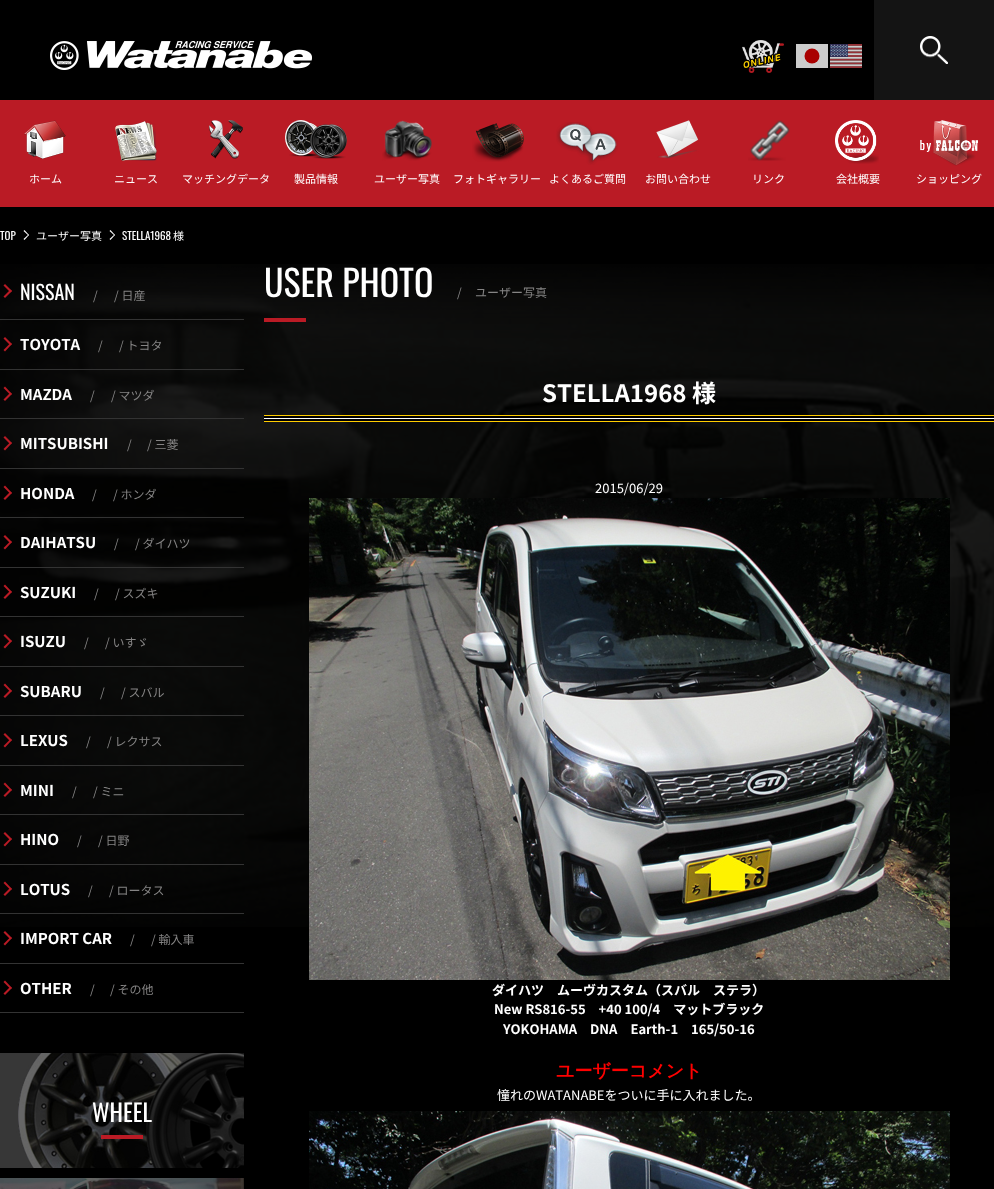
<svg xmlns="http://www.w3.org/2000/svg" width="994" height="1189">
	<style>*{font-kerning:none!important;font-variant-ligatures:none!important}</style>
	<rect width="100%" height="100%" fill="#000000" />
	<image x="50" y="41" width="262" height="29" href="assets/img1.png" />
	<image x="742" y="40" width="42" height="33" href="assets/img2.png" />
	<rect x="796" y="44" width="32" height="24" fill="#CCCCCC" />
	<image x="830" y="44" width="32" height="24" href="assets/img3.png" />
	<circle cx="812" cy="56" r="7.5" fill="#A90000" />
	<rect x="874" y="0" width="120" height="100" fill="#141414" />
	<image x="920" y="36" width="28" height="28" href="assets/img4.png" />
	<rect x="0" y="100" width="994" height="107" fill="#BA1B25" />
	<image x="24" y="120" width="42" height="39" href="assets/img5.png" />
	<text x="29" y="183" font-family="Noto Sans JP" font-size="11" fill="#FFFFFF">ホーム</text>
	<image x="115" y="121" width="42" height="40" href="assets/img6.png" />
	<text x="114" y="183" font-family="Noto Sans JP" font-size="11" fill="#FFFFFF">ニュース</text>
	<image x="209" y="120" width="34" height="39" href="assets/img7.png" />
	<text x="182" y="183" font-family="Noto Sans JP" font-size="11" fill="#FFFFFF">マッチングデータ</text>
	<image x="285" y="120" width="62" height="39" href="assets/img8.png" />
	<text x="294" y="183" font-family="Noto Sans JP" font-size="11" fill="#FFFFFF">製品情報</text>
	<image x="382" y="120" width="50" height="41" href="assets/img9.png" />
	<text x="374" y="183" font-family="Noto Sans JP" font-size="11" fill="#FFFFFF">ユーザー写真</text>
	<image x="472" y="123" width="52" height="39" href="assets/img10.png" />
	<text x="453" y="183" font-family="Noto Sans JP" font-size="11" fill="#FFFFFF">フォトギャラリー</text>
	<image x="556" y="122" width="62" height="43" href="assets/img11.png" />
	<text x="549" y="183" font-family="Noto Sans JP" font-size="11" fill="#FFFFFF">よくあるご質問</text>
	<image x="656" y="120" width="43" height="39" href="assets/img12.png" />
	<text x="645" y="183" font-family="Noto Sans JP" font-size="11" fill="#FFFFFF">お問い合わせ</text>
	<image x="748" y="120" width="42" height="41" href="assets/img13.png" />
	<text x="752" y="183" font-family="Noto Sans JP" font-size="11" fill="#FFFFFF">リンク</text>
	<image x="835" y="120" width="44" height="44" href="assets/img14.png" />
	<text x="836" y="183" font-family="Noto Sans JP" font-size="11" fill="#FFFFFF">会社概要</text>
	<image x="920" y="120" width="58" height="46" href="assets/img15.png" />
	<text x="916" y="183" font-family="Noto Sans JP" font-size="11" fill="#FFFFFF">ショッピング</text>
	<text x="0" y="240" font-family="Oswald" font-size="11" fill="#FFFFFF">TOP</text>
	<path d="M24.5 230L29 235L28.5 235.5L23.5 231Z" fill="#FFFFFF" />
	<path d="M28.5 234.5L29 235L24.5 240L23.5 239Z" fill="#FFFFFF" />
	<text x="36" y="240" font-family="Noto Sans JP" font-size="11" fill="#FFFFFF">ユーザー写真</text>
	<path d="M110.5 230L115 235L114.5 235.5L109.5 231Z" fill="#FFFFFF" />
	<path d="M114.5 234.5L115 235L110.5 240L109.5 239Z" fill="#FFFFFF" />
	<text x="122" y="240" font-family="Oswald" font-size="11" fill="#FFFFFF">STELLA1968</text>
	<text x="173" y="240" font-family="Noto Sans JP" font-size="11" fill="#FFFFFF">様</text>
	<image x="0" y="264" width="994" height="663" href="assets/img16.png" />
	<rect x="0" y="319" width="244" height="1" fill="#333333" />
	<path d="M5 284L12 291L10.5 292.5L3.5 285.5Z" fill="#BA1B25" />
	<path d="M10.5 289.5L12 291L5 298L3.5 296.5Z" fill="#BA1B25" />
	<text x="20" y="300" font-family="Oswald" font-size="20" fill="#FFFFFF">NISSAN</text>
	<g font-family="Noto Sans JP" font-size="12" fill="#858484">
		<text x="93" y="300">/</text>
		<text x="114" y="300">/ 日産</text>
	</g>
	<rect x="0" y="369" width="244" height="1" fill="#333333" />
	<path d="M5 337L12 344L10.5 345.5L3.5 338.5Z" fill="#BA1B25" />
	<path d="M10.5 343L12 344L5 351.5L3.5 350Z" fill="#BA1B25" />
	<text x="20" y="350" font-family="Noto Sans JP" font-size="15" font-weight="700" fill="#FFFFFF">TOYOTA</text>
	<g font-family="Noto Sans JP" font-size="12" fill="#858484">
		<text x="98" y="350">/</text>
		<text x="119" y="350">/ トヨタ</text>
	</g>
	<rect x="0" y="418" width="244" height="1" fill="#333333" />
	<path d="M5 386.5L12 394L10.5 395L3.5 388Z" fill="#BA1B25" />
	<path d="M10.5 392.5L12 394L5 401L3.5 399.5Z" fill="#BA1B25" />
	<text x="20" y="400" font-family="Noto Sans JP" font-size="15" font-weight="700" fill="#FFFFFF">MAZDA</text>
	<g font-family="Noto Sans JP" font-size="12" fill="#858484">
		<text x="90" y="400">/</text>
		<text x="111" y="400">/ マツダ</text>
	</g>
	<rect x="0" y="468" width="244" height="1" fill="#333333" />
	<path d="M5 436L12 443L10.5 444.5L3.5 437.5Z" fill="#BA1B25" />
	<path d="M10.5 442L12 443L5 450.5L3.5 449Z" fill="#BA1B25" />
	<text x="20" y="449" font-family="Noto Sans JP" font-size="15" font-weight="700" fill="#FFFFFF">MITSUBISHI</text>
	<g font-family="Noto Sans JP" font-size="12" fill="#858484">
		<text x="127" y="449">/</text>
		<text x="147" y="449">/ 三菱</text>
	</g>
	<rect x="0" y="517" width="244" height="1" fill="#333333" />
	<path d="M5 485.5L12 493L10.5 494L3.5 487Z" fill="#BA1B25" />
	<path d="M10.5 491.5L12 493L5 500L3.5 498.5Z" fill="#BA1B25" />
	<text x="20" y="499" font-family="Noto Sans JP" font-size="15" font-weight="700" fill="#FFFFFF">HONDA</text>
	<g font-family="Noto Sans JP" font-size="12" fill="#858484">
		<text x="92" y="499">/</text>
		<text x="113" y="499">/ ホンダ</text>
	</g>
	<rect x="0" y="567" width="244" height="1" fill="#333333" />
	<path d="M5 535L12 542L10.5 543.5L3.5 536.5Z" fill="#BA1B25" />
	<path d="M10.5 541L12 542L5 549.5L3.5 548Z" fill="#BA1B25" />
	<text x="20" y="548" font-family="Noto Sans JP" font-size="15" font-weight="700" fill="#FFFFFF">DAIHATSU</text>
	<g font-family="Noto Sans JP" font-size="12" fill="#858484">
		<text x="114" y="548">/</text>
		<text x="135" y="548">/ ダイハツ</text>
	</g>
	<rect x="0" y="616" width="244" height="1" fill="#333333" />
	<path d="M5 584.5L12 592L10.5 593L3.5 586Z" fill="#BA1B25" />
	<path d="M10.5 590.5L12 592L5 599L3.5 597.5Z" fill="#BA1B25" />
	<text x="20" y="598" font-family="Noto Sans JP" font-size="15" font-weight="700" fill="#FFFFFF">SUZUKI</text>
	<g font-family="Noto Sans JP" font-size="12" fill="#858484">
		<text x="94" y="598">/</text>
		<text x="115" y="598">/ スズキ</text>
	</g>
	<rect x="0" y="666" width="244" height="1" fill="#333333" />
	<path d="M5 634L12 641L10.5 642.5L3.5 635.5Z" fill="#BA1B25" />
	<path d="M10.5 640L12 641L5 648.5L3.5 647Z" fill="#BA1B25" />
	<text x="20" y="647" font-family="Noto Sans JP" font-size="15" font-weight="700" fill="#FFFFFF">ISUZU</text>
	<g font-family="Noto Sans JP" font-size="12" fill="#858484">
		<text x="84" y="647">/</text>
		<text x="105" y="647">/ いすゞ</text>
	</g>
	<rect x="0" y="715" width="244" height="1" fill="#333333" />
	<path d="M5 683.5L12 691L10.5 692L3.5 685Z" fill="#BA1B25" />
	<path d="M10.5 689.5L12 691L5 698L3.5 696.5Z" fill="#BA1B25" />
	<text x="20" y="697" font-family="Noto Sans JP" font-size="15" font-weight="700" fill="#FFFFFF">SUBARU</text>
	<g font-family="Noto Sans JP" font-size="12" fill="#858484">
		<text x="100" y="697">/</text>
		<text x="121" y="697">/ スバル</text>
	</g>
	<rect x="0" y="765" width="244" height="1" fill="#333333" />
	<path d="M5 733L12 740L10.5 741.5L3.5 734.5Z" fill="#BA1B25" />
	<path d="M10.5 739L12 740L5 747.5L3.5 746Z" fill="#BA1B25" />
	<text x="20" y="746" font-family="Noto Sans JP" font-size="15" font-weight="700" fill="#FFFFFF">LEXUS</text>
	<g font-family="Noto Sans JP" font-size="12" fill="#858484">
		<text x="86" y="746">/</text>
		<text x="107" y="746">/ レクサス</text>
	</g>
	<rect x="0" y="814" width="244" height="1" fill="#333333" />
	<path d="M5 782.5L12 790L10.5 791L3.5 784Z" fill="#BA1B25" />
	<path d="M10.5 788.5L12 790L5 797L3.5 795.5Z" fill="#BA1B25" />
	<text x="20" y="796" font-family="Noto Sans JP" font-size="15" font-weight="700" fill="#FFFFFF">MINI</text>
	<g font-family="Noto Sans JP" font-size="12" fill="#858484">
		<text x="72" y="796">/</text>
		<text x="93" y="796">/ ミニ</text>
	</g>
	<rect x="0" y="864" width="244" height="1" fill="#333333" />
	<path d="M5 832L12 839L10.5 840.5L3.5 833.5Z" fill="#BA1B25" />
	<path d="M10.5 838L12 839L5 846.5L3.5 845Z" fill="#BA1B25" />
	<text x="20" y="845" font-family="Noto Sans JP" font-size="15" font-weight="700" fill="#FFFFFF">HINO</text>
	<g font-family="Noto Sans JP" font-size="12" fill="#858484">
		<text x="77" y="845">/</text>
		<text x="98" y="845">/ 日野</text>
	</g>
	<rect x="0" y="913" width="244" height="1" fill="#333333" />
	<path d="M5 881.5L12 889L10.5 890L3.5 883Z" fill="#BA1B25" />
	<path d="M10.5 887.5L12 889L5 896L3.5 894.5Z" fill="#BA1B25" />
	<text x="20" y="895" font-family="Noto Sans JP" font-size="15" font-weight="700" fill="#FFFFFF">LOTUS</text>
	<g font-family="Noto Sans JP" font-size="12" fill="#858484">
		<text x="88" y="895">/</text>
		<text x="109" y="895">/ ロータス</text>
	</g>
	<rect x="0" y="963" width="244" height="1" fill="#333333" />
	<path d="M5 931L12 938L10.5 939.5L3.5 932.5Z" fill="#BA1B25" />
	<path d="M10.5 937L12 938L5 945.5L3.5 944Z" fill="#BA1B25" />
	<text x="20" y="944" font-family="Noto Sans JP" font-size="15" font-weight="700" fill="#FFFFFF">IMPORT CAR</text>
	<g font-family="Noto Sans JP" font-size="12" fill="#858484">
		<text x="130" y="944">/</text>
		<text x="151" y="944">/ 輸入車</text>
	</g>
	<rect x="0" y="1012" width="244" height="1" fill="#333333" />
	<path d="M5 980.5L12 988L10.5 989L3.5 982Z" fill="#BA1B25" />
	<path d="M10.5 986.5L12 988L5 995L3.5 993.5Z" fill="#BA1B25" />
	<text x="20" y="994" font-family="Noto Sans JP" font-size="15" font-weight="700" fill="#FFFFFF">OTHER</text>
	<g font-family="Noto Sans JP" font-size="12" fill="#858484">
		<text x="90" y="994">/</text>
		<text x="110" y="994">/ その他</text>
	</g>
	<image x="0" y="1053" width="244" height="115" href="assets/img17.png" />
	<text x="92" y="1122" font-family="Oswald" font-size="24" fill="#FFFFFF">WHEEL</text>
	<rect x="101" y="1135" width="42" height="4" fill="#BA1B25" />
	<image x="0" y="1178" width="244" height="11" href="assets/img18.png" />
	<text x="264" y="297" font-family="Oswald" font-size="36" fill="#FFFFFF">USER PHOTO</text>
	<rect x="264" y="318" width="42" height="4" fill="#BA1B25" />
	<g font-family="Noto Sans JP" font-size="12" fill="#858484">
		<text x="457" y="297">/</text>
		<text x="475" y="297">ユーザー写真</text>
	</g>
	<image x="264" y="415" width="730" height="7" href="assets/img19.png" />
	<text x="542" y="402" font-family="Noto Sans JP" font-size="24" font-weight="700" fill="#FFFFFF">STELLA1968 様</text>
	<text x="595" y="493" font-family="Noto Sans JP" font-size="13" fill="#FFFFFF">2015/06/29</text>
	<image x="309" y="498" width="641" height="482" href="assets/img20.png" />
	<g font-family="Noto Sans JP" font-size="13" font-weight="700" fill="#FFFFFF">
		<text x="492" y="995">ダイハツ　ムーヴカスタム（スバル　ステラ）</text>
		<text x="494" y="1014">New RS816-55　+40 100/4　マットブラック</text>
		<text x="503" y="1034">YOKOHAMA　DNA　Earth-1　165/50-16</text>
	</g>
	<text x="556" y="1077" font-family="WenQuanYi Zen Hei" font-size="18" font-weight="700" fill="#FF0000">ユーザーコメント</text>
	<text x="497" y="1100" font-family="Noto Sans JP" font-size="13" fill="#FFFFFF">憧れのWATANABEをついに手に入れました。</text>
	<image x="309" y="1111" width="641" height="78" href="assets/img21.png" />
</svg>
